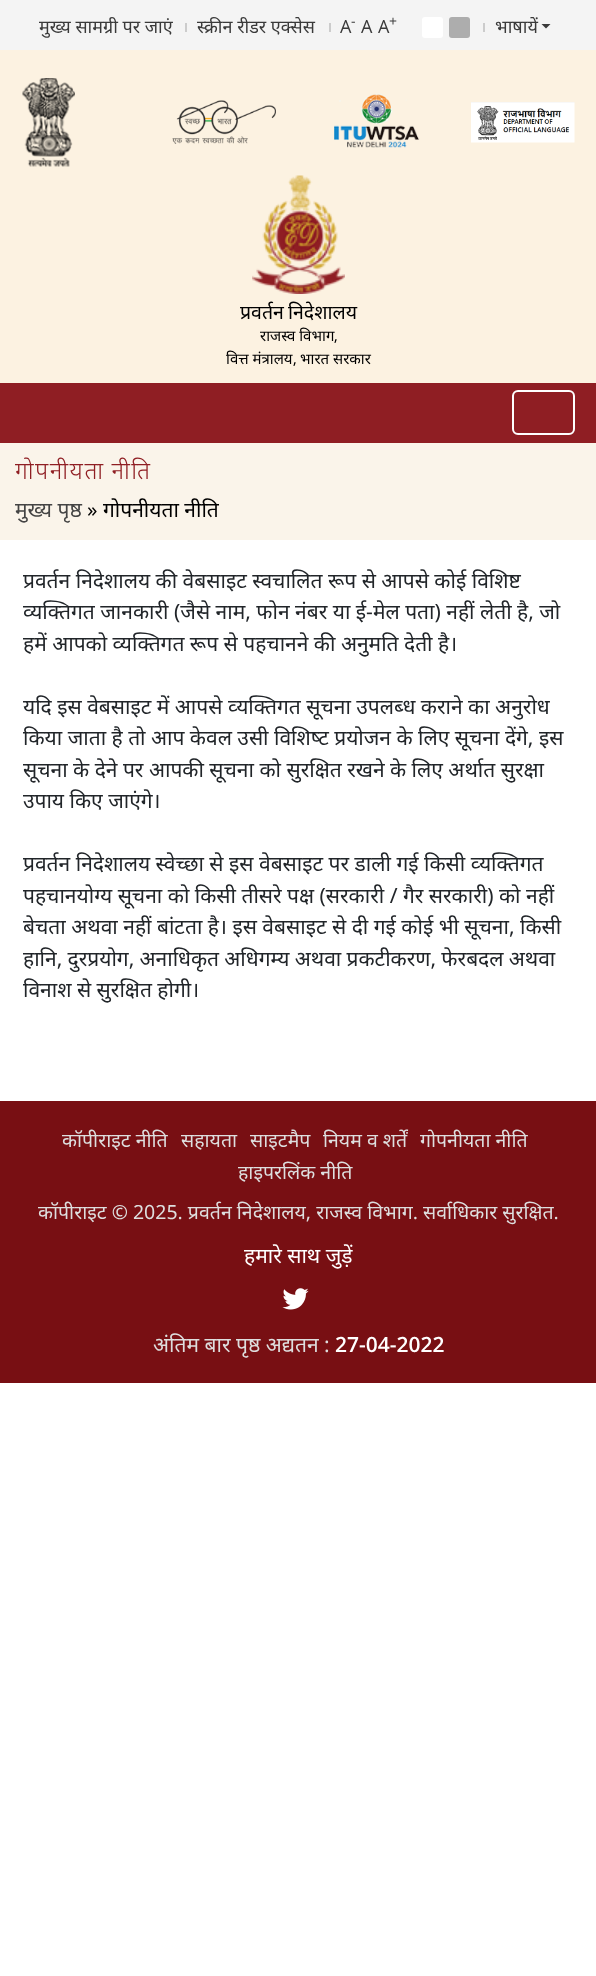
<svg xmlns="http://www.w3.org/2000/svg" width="596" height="1976">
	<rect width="100%" height="100%" fill="#FFFFFF" />
	<rect x="0" y="0" width="596" height="50" fill="#F4F4F4" />
	<text x="39" y="33" font-family="Noto Sans" font-size="18" fill="#3A3A3A">मुख्य सामग्री पर जाएं</text>
	<rect x="185" y="23" width="2" height="9" fill="#CCCCCC" />
	<text x="197" y="33" font-family="Noto Sans" font-size="18" fill="#3A3A3A">स्क्रीन रीडर एक्सेस</text>
	<text x="340" y="33" font-family="Open Sans" font-size="18" fill="#3A3A3A">A</text>
	<text x="351" y="26" font-family="Open Sans" font-size="14" fill="#3A3A3A">-</text>
	<g font-family="Open Sans" font-size="18" fill="#3A3A3A">
		<text x="361" y="33">A</text>
		<text x="378" y="33">A</text>
	</g>
	<text x="389" y="26" font-family="Open Sans" font-size="14" fill="#3A3A3A">+</text>
	<rect x="329" y="23" width="2" height="9" fill="#CCCCCC" />
	<rect x="422" y="17" width="21" height="21" rx="3" fill="#FFFFFF" />
	<rect x="449" y="17" width="21" height="21" rx="3" fill="#ADADAD" />
	<rect x="483" y="23" width="2" height="9" fill="#CCCCCC" />
	<text x="495" y="33" font-family="Noto Sans" font-size="18" fill="#3A3A3A">भाषायें</text>
	<path d="M541.5 24H550.5L546 28.5Z" fill="#3A3A3A" />
	<rect x="0" y="50" width="596" height="333" fill="#FCF2E1" />
	<image x="22" y="78" width="53" height="89" href="assets/img1.png" />
	<image x="172" y="100" width="104" height="44" href="assets/img2.png" />
	<image x="334" y="93" width="86" height="55" href="assets/img3.png" />
	<image x="471" y="102" width="104" height="41" href="assets/img4.png" />
	<image x="252" y="175" width="93" height="119" href="assets/img5.png" />
	<text x="240" y="319" word-spacing="-1" font-family="Noto Sans" font-size="19.5" fill="#000000">प्रवर्तन निदेशालय</text>
	<text x="260" y="341" font-family="Noto Sans" font-size="15" fill="#000000">राजस्व विभाग</text>
	<text x="334" y="341" font-family="Open Sans" font-size="15" fill="#000000">,</text>
	<text x="226" y="364" font-family="Noto Sans" font-size="15" fill="#000000">वित्त मंत्रालय</text>
	<text x="293" y="364" font-family="Open Sans" font-size="15" fill="#000000">,</text>
	<text x="300" y="364" font-family="Noto Sans" font-size="15" fill="#000000">भारत सरकार</text>
	<rect x="0" y="383" width="596" height="60" fill="#8F1E23" />
	<rect x="513" y="391" width="61" height="43" rx="5" fill="none" stroke="#FFFFFF" stroke-width="2" />
	<rect x="0" y="443" width="596" height="97" fill="#FAF4EA" />
	<text x="15" y="479" word-spacing="-1" font-family="Noto Sans" font-size="24" font-weight="300" letter-spacing="1.5" fill="#8F1E23">गोपनीयता नीति</text>
	<text x="15" y="517" font-family="Noto Sans" font-size="21" fill="#444444">मुख्य पृष्ठ</text>
	<text x="87" y="517" font-family="Open Sans" font-size="21" fill="#000000">»</text>
	<text x="103" y="517" font-family="Noto Sans" font-size="21" fill="#000000">गोपनीयता नीति</text>
	<g font-family="Noto Sans" font-size="21" fill="#212529">
		<text x="23" y="588">प्रवर्तन निदेशालय की वेबसाइट स्वचालित रूप से आपसे कोई विशिष्ट</text>
		<text x="23" y="619">व्यक्तिगत जानकारी (जैसे नाम, फोन नंबर या ई-मेल पता) नहीं लेती है, जो</text>
		<text x="23" y="651">हमें आपको व्यक्तिगत रूप से पहचानने की अनुमति देती है।</text>
		<text x="23" y="714">यदि इस वेबसाइट में आपसे व्‍यक्तिगत सूचना उपलब्‍ध कराने का अनुरोध</text>
		<text x="23" y="745">किया जाता है तो आप केवल उसी विशिष्‍ट प्रयोजन के लिए सूचना देंगे, इस</text>
		<text x="23" y="777">सूचना के देने पर आपकी सूचना को सुरक्षित रखने के लिए अर्थात सुरक्षा</text>
		<text x="23" y="808">उपाय किए जाएंगे।</text>
		<text x="23" y="871">प्रवर्तन निदेशालय स्‍वेच्‍छा से इस वेबसाइट पर डाली गई किसी व्‍यक्तिगत</text>
		<text x="23" y="903">पहचानयोग्‍य सूचना को किसी तीसरे पक्ष (सरकारी / गैर सरकारी) को नहीं</text>
		<text x="23" y="934">बेचता अथवा नहीं बांटता है। इस वेबसाइट से दी गई कोई भी सूचना, किसी</text>
		<text x="23" y="966" word-spacing="-0.25">हानि, दुरप्रयोग, अनाधिकृत अधिगम्य अथवा प्रकटीकरण, फेरबदल अथवा</text>
		<text x="23" y="997">विनाश से सुरक्षित होगी।</text>
	</g>
	<rect x="0" y="1101" width="596" height="282" fill="#780F13" />
	<g font-family="Noto Sans" font-size="19.5" fill="#DEDEDE">
		<text x="62" y="1147">कॉपीराइट नीति</text>
		<text x="181" y="1147">सहायता</text>
		<text x="250" y="1147">साइटमैप</text>
		<text x="323" y="1147">नियम व शर्तें</text>
		<text x="420" y="1147">गोपनीयता नीति</text>
		<text x="238" y="1179">हाइपरलिंक नीति</text>
		<text x="38" y="1219">कॉपीराइट © 2025. प्रवर्तन निदेशालय, राजस्व विभाग. सर्वाधिकार सुरक्षित.</text>
	</g>
	<text x="244" y="1263" font-family="Noto Sans" font-size="21" fill="#FFFFFF">हमारे साथ जुड़ें</text>
	<image x="282" y="1288" width="27" height="22" href="assets/img6.png" />
	<text x="153" y="1352" font-family="Noto Sans" font-size="21" fill="#DEDEDE">अंतिम बार पृष्ठ अद्यतन :</text>
	<text x="335" y="1352" font-family="Open Sans" font-size="21" font-weight="600" fill="#FFFFFF">27-04-2022</text>
</svg>
